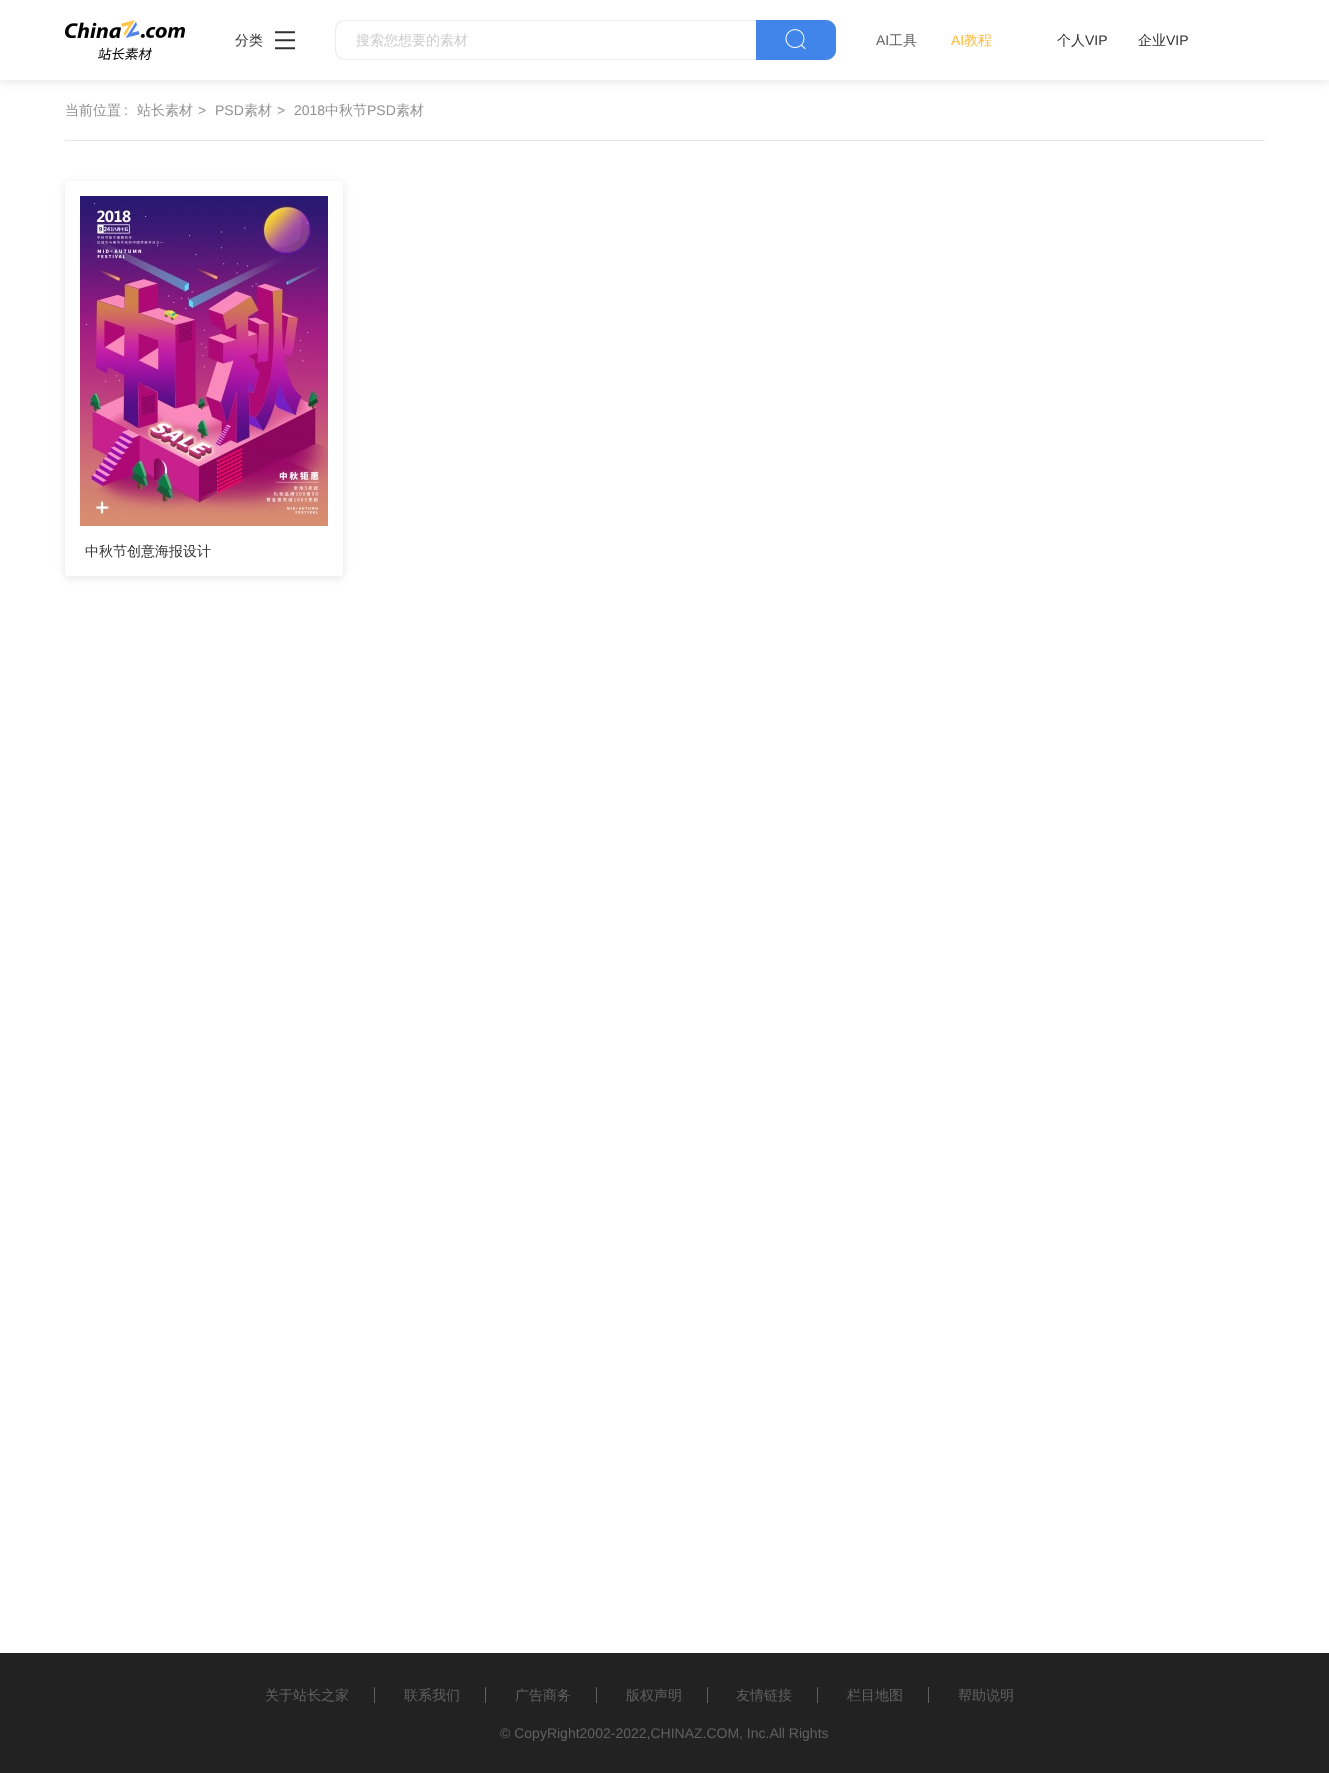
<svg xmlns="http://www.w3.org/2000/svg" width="1329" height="1773">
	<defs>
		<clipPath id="clip1"><rect x="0" y="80" width="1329" height="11" /></clipPath>
		<clipPath id="clip2"><path d="M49 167H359V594H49ZM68 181H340C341.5 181 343 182.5 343 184V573C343 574.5 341.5 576 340 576H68C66.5 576 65 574.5 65 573V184C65 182.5 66.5 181 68 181Z" clip-rule="evenodd" /></clipPath>
	</defs>
	<rect width="100%" height="100%" fill="#FFFFFF" />
	<g clip-path="url(#clip1)">
		<rect x="0" y="2" width="1329" height="80" fill="#CCCCCC" fill-opacity="0.5" filter="blur(5px)" />
	</g>
	<image x="65" y="20" width="120" height="40" href="assets/img1.png" />
	<text x="235" y="45" font-family="WenQuanYi Zen Hei" font-size="14" font-weight="500" fill="#313131">分类</text>
	<image x="275" y="31" width="20" height="19" href="assets/img2.png" />
	<path d="M345 20H756V60H345C339 60 335 56 335 50V30C335 24 339 20 345 20ZM345 21H756V59H345C334 59 336 47 336 40C336 33 334 21 345 21Z" fill="#E8EAEC" fill-rule="evenodd" />
	<path d="M346 21H756V59H346C340.5 59 336 54.5 336 49V31C336 25.5 340.5 21 346 21Z" fill="#FFFFFF" />
	<text x="356" y="45" font-family="WenQuanYi Zen Hei" font-size="14" font-weight="500" fill="#CCCCCC">搜索您想要的素材</text>
	<path d="M756 20H826C831.5 20 836 24.5 836 30V50C836 55.5 831.5 60 826 60H756Z" fill="#4185EB" />
	<image x="785" y="29" width="21" height="21" href="assets/img3.png" />
	<text x="876" y="45" font-family="Liberation Sans" font-size="14" fill="#616161">AI</text>
	<text x="889" y="45" font-family="WenQuanYi Zen Hei" font-size="14" font-weight="500" fill="#616161">工具</text>
	<text x="951" y="45" font-family="Liberation Sans" font-size="14" fill="#FEBA3D">AI</text>
	<text x="964" y="45" font-family="WenQuanYi Zen Hei" font-size="14" font-weight="500" fill="#FEBA3D">教程</text>
	<text x="1057" y="45" font-family="WenQuanYi Zen Hei" font-size="14" font-weight="500" fill="#313131">个人</text>
	<text x="1085" y="45" font-family="Liberation Sans" font-size="14" fill="#313131">VIP</text>
	<text x="1138" y="45" font-family="WenQuanYi Zen Hei" font-size="14" font-weight="500" fill="#313131">企业</text>
	<text x="1166" y="45" font-family="Liberation Sans" font-size="14" fill="#313131">VIP</text>
	<text x="65" y="115" font-family="WenQuanYi Zen Hei" font-size="14" font-weight="500" fill="#919191">当前位置</text>
	<text x="124" y="115" font-family="Liberation Sans" font-size="14" fill="#919191">:</text>
	<text x="137" y="115" font-family="WenQuanYi Zen Hei" font-size="14" font-weight="500" fill="#919191">站长素材</text>
	<g font-family="Liberation Sans" font-size="14" fill="#919191">
		<text x="198" y="115">&gt;</text>
		<text x="215" y="115">PSD</text>
	</g>
	<text x="244" y="115" font-family="WenQuanYi Zen Hei" font-size="14" font-weight="500" fill="#919191">素材</text>
	<g font-family="Liberation Sans" font-size="14" fill="#919191">
		<text x="277" y="115">&gt;</text>
		<text x="294" y="115">2018</text>
	</g>
	<text x="325" y="115" font-family="WenQuanYi Zen Hei" font-size="14" font-weight="500" fill="#919191">中秋节</text>
	<text x="367" y="115" font-family="Liberation Sans" font-size="14" fill="#919191">PSD</text>
	<text x="396" y="115" font-family="WenQuanYi Zen Hei" font-size="14" font-weight="500" fill="#919191">素材</text>
	<rect x="65" y="140" width="1200" height="1" fill="#E5E6E5" />
	<g clip-path="url(#clip2)">
		<rect x="65" y="183" width="278" height="395" rx="3" fill="#CCCCCC" fill-opacity="0.5" filter="blur(5px)" />
	</g>
	<image x="80" y="196" width="248" height="330" href="assets/img4.png" />
	<text x="85" y="556" font-family="WenQuanYi Zen Hei" font-size="14" font-weight="500" fill="#313131">中秋节创意海报设计</text>
	<rect x="0" y="1653" width="1329" height="120" fill="#222222" />
	<text x="265" y="1700" font-family="WenQuanYi Zen Hei" font-size="14" font-weight="500" fill="#616161">关于站长之家</text>
	<rect x="374" y="1687" width="1" height="16" fill="#616161" />
	<text x="404" y="1700" font-family="WenQuanYi Zen Hei" font-size="14" font-weight="500" fill="#616161">联系我们</text>
	<rect x="485" y="1687" width="1" height="16" fill="#616161" />
	<text x="515" y="1700" font-family="WenQuanYi Zen Hei" font-size="14" font-weight="500" fill="#616161">广告商务</text>
	<rect x="596" y="1687" width="1" height="16" fill="#616161" />
	<text x="626" y="1700" font-family="WenQuanYi Zen Hei" font-size="14" font-weight="500" fill="#616161">版权声明</text>
	<rect x="707" y="1687" width="1" height="16" fill="#616161" />
	<text x="736" y="1700" font-family="WenQuanYi Zen Hei" font-size="14" font-weight="500" fill="#616161">友情链接</text>
	<rect x="817" y="1687" width="1" height="16" fill="#616161" />
	<text x="847" y="1700" font-family="WenQuanYi Zen Hei" font-size="14" font-weight="500" fill="#616161">栏目地图</text>
	<rect x="928" y="1687" width="1" height="16" fill="#616161" />
	<text x="958" y="1700" font-family="WenQuanYi Zen Hei" font-size="14" font-weight="500" fill="#616161">帮助说明</text>
	<text x="500" y="1738" font-family="Liberation Sans" font-size="14" fill="#616161">© CopyRight2002-2022,CHINAZ.COM, Inc.All Rights</text>
</svg>
